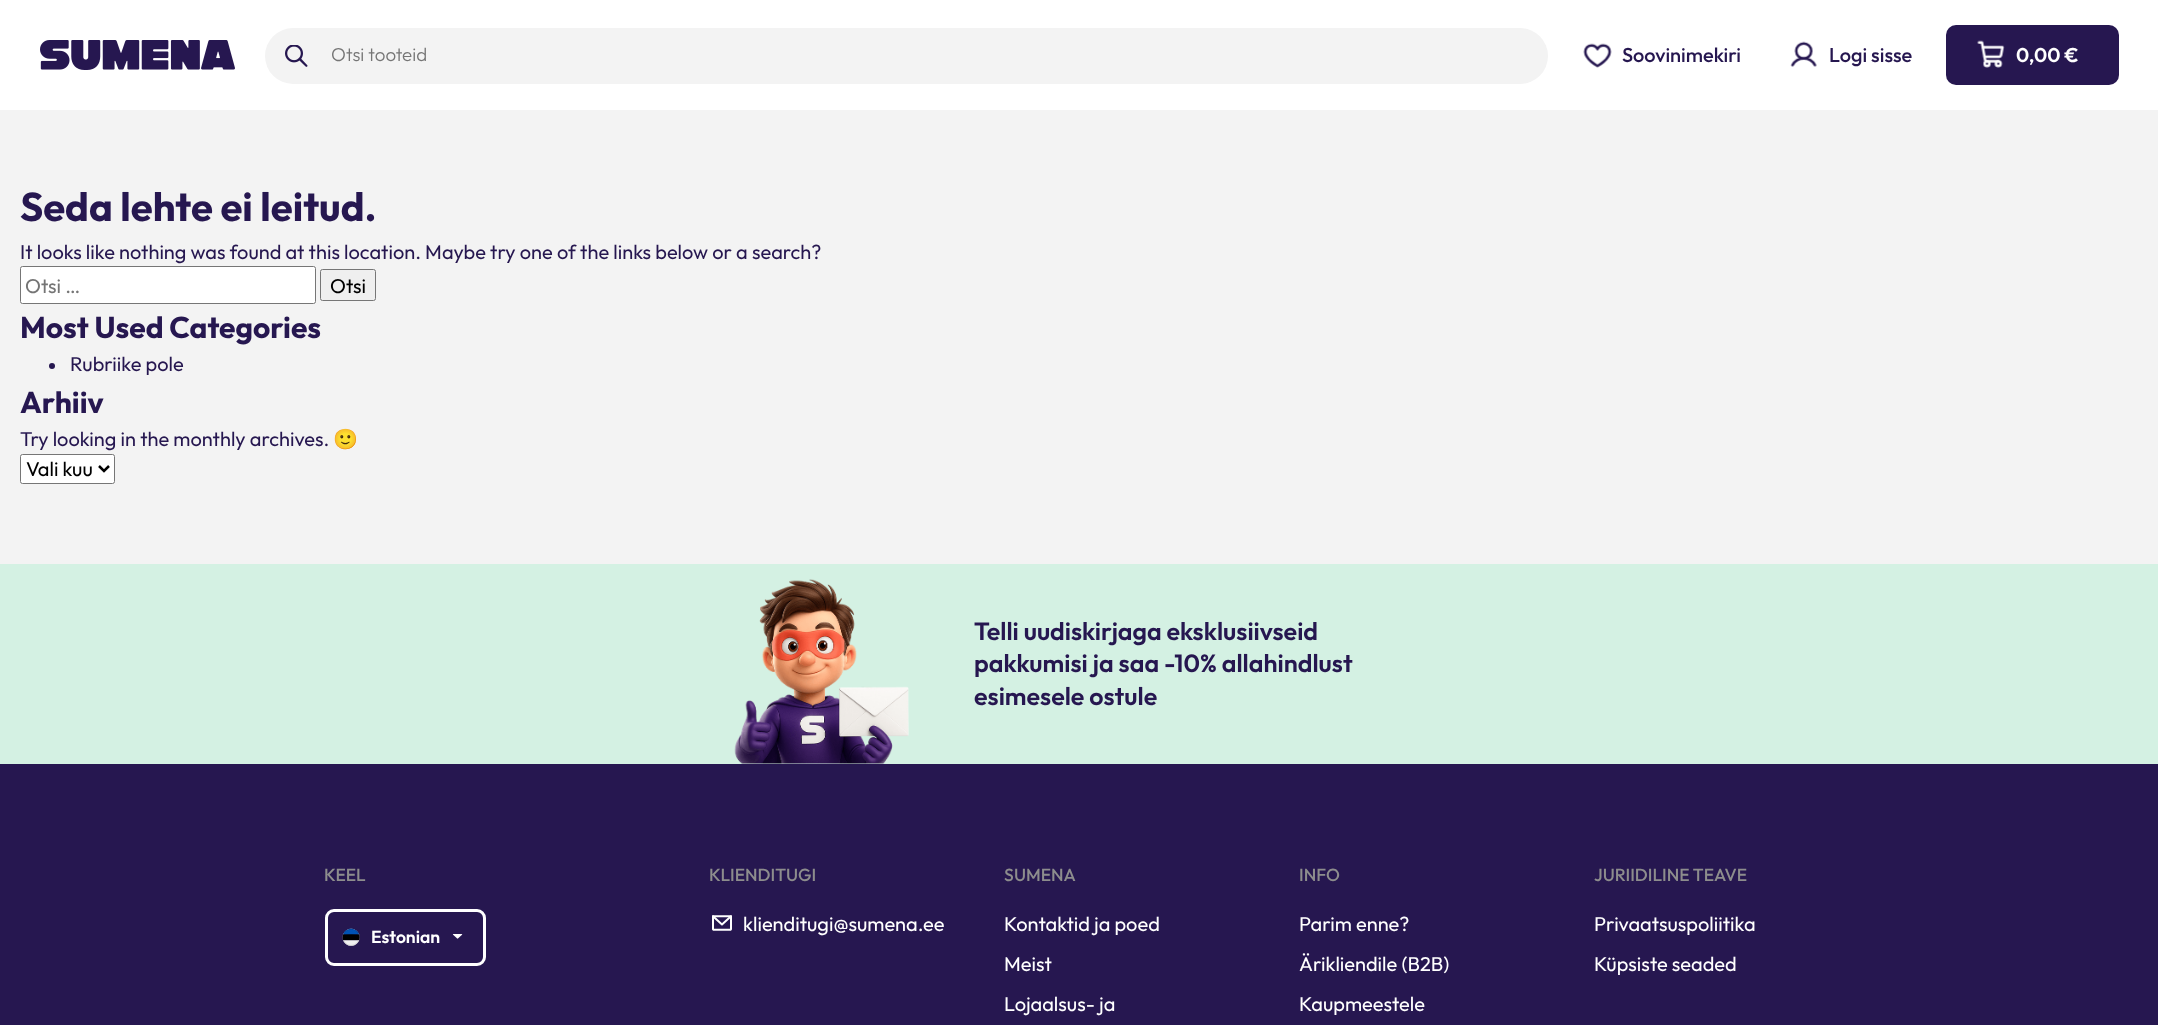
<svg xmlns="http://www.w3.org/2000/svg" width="2158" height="1025">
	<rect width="100%" height="100%" fill="#F3F3F3" />
	<rect x="0" y="0" width="2158" height="110" fill="#FFFFFF" />
	<image x="40" y="40" width="195" height="30" href="assets/img1.png" />
	<rect x="265" y="28" width="1283" height="56" rx="28" fill="#F3F3F3" />
	<image x="285" y="45" width="23" height="22" href="assets/img2.png" />
	<text x="331" y="61" font-family="Outfit" font-size="18.75" font-weight="300" fill="#757575">Otsi tooteid</text>
	<image x="1583" y="43" width="29" height="25" href="assets/img3.png" />
	<text x="1622" y="62" font-family="Outfit" font-size="20" font-weight="500" fill="#261750">Soovinimekiri</text>
	<image x="1790" y="41" width="27" height="26" href="assets/img4.png" />
	<text x="1829" y="62" font-family="Outfit" font-size="20" font-weight="500" fill="#261750">Logi sisse</text>
	<rect x="1946" y="25" width="173" height="60" rx="10" fill="#261750" />
	<image x="1977" y="40" width="28" height="28" href="assets/img5.png" />
	<text x="2016" y="62" font-family="Outfit" font-size="20" font-weight="600" fill="#FFFFFF">0,00 €</text>
	<text x="20" y="221" font-family="Outfit" font-size="40" font-weight="700" fill="#261750">Seda lehte ei leitud.</text>
	<text x="20" y="259" font-family="Outfit" font-size="20" fill="#261750">It looks like nothing was found at this location. Maybe try one of the links below or a search?</text>
	<rect x="20.5" y="266.5" width="295" height="37" rx="2" fill="#FFFFFF" stroke="#767676" />
	<text x="25" y="293" font-family="Outfit" font-size="20" fill="#757575">Otsi …</text>
	<rect x="320.5" y="269.5" width="55" height="31" rx="2" fill="#EFEFEF" stroke="#767676" />
	<text x="330" y="293" font-family="Outfit" font-size="20" fill="#000000">Otsi</text>
	<text x="20" y="338" font-family="Outfit" font-size="30" font-weight="700" fill="#261750">Most Used Categories</text>
	<circle cx="52" cy="366" r="3" fill="#261750" />
	<text x="70" y="371" font-family="Outfit" font-size="20" fill="#261750">Rubriike pole</text>
	<text x="20" y="413" font-family="Outfit" font-size="30" font-weight="700" fill="#261750">Arhiiv</text>
	<text x="20" y="446" font-family="Outfit" font-size="20" fill="#261750">Try looking in the monthly archives.</text>
	<text x="333" y="446" font-family="Noto Color Emoji" font-size="20" fill="#261750">🙂</text>
	<rect x="20.5" y="454.5" width="94" height="29" rx="2" fill="#FFFFFF" stroke="#767676" />
	<path d="M99 466L104 471L109 466" fill="none" stroke="#000000" stroke-width="2.5" />
	<text x="26" y="476" font-family="Outfit" font-size="20" fill="#000000">Vali kuu</text>
	<rect x="0" y="564" width="2158" height="200" fill="#D4F1E3" />
	<image x="734" y="579" width="175" height="185" href="assets/img6.png" />
	<g font-family="Outfit" font-size="25" font-weight="600" fill="#261750">
		<text x="974" y="640">Telli uudiskirjaga eksklusiivseid</text>
		<text x="974" y="672">pakkumisi ja saa -10% allahindlust</text>
		<text x="974" y="705">esimesele ostule</text>
	</g>
	<rect x="0" y="764" width="2158" height="261" fill="#261750" />
	<text x="324" y="881" font-family="Outfit" font-size="17.5" font-weight="500" fill="#8D8D8D">KEEL</text>
	<rect x="326.5" y="910.5" width="158" height="54" rx="7.5" fill="none" stroke="#FFFFFF" stroke-width="3" />
	<image x="342" y="928" width="18" height="18" href="assets/img7.png" />
	<text x="371" y="943" font-family="Outfit" font-size="17.5" font-weight="600" fill="#FFFFFF">Estonian</text>
	<image x="452" y="934" width="11" height="5" href="assets/img8.png" />
	<text x="709" y="881" font-family="Outfit" font-size="17.5" font-weight="500" fill="#8D8D8D">KLIENDITUGI</text>
	<image x="712" y="915" width="20" height="16" href="assets/img9.png" />
	<text x="743" y="931" font-family="Outfit" font-size="20" fill="#FFFFFF">klienditugi@sumena.ee</text>
	<text x="1004" y="881" font-family="Outfit" font-size="17.5" font-weight="500" fill="#8D8D8D">SUMENA</text>
	<g font-family="Outfit" font-size="20" fill="#FFFFFF">
		<text x="1004" y="931">Kontaktid ja poed</text>
		<text x="1004" y="971">Meist</text>
		<text x="1004" y="1011">Lojaalsus- ja</text>
	</g>
	<text x="1299" y="881" font-family="Outfit" font-size="17.5" font-weight="500" fill="#8D8D8D">INFO</text>
	<g font-family="Outfit" font-size="20" fill="#FFFFFF">
		<text x="1299" y="931">Parim enne?</text>
		<text x="1299" y="971">Ärikliendile (B2B)</text>
		<text x="1299" y="1011">Kaupmeestele</text>
	</g>
	<text x="1594" y="881" font-family="Outfit" font-size="17.5" font-weight="500" fill="#8D8D8D">JURIIDILINE TEAVE</text>
	<g font-family="Outfit" font-size="20" fill="#FFFFFF">
		<text x="1594" y="931">Privaatsuspoliitika</text>
		<text x="1594" y="971">Küpsiste seaded</text>
	</g>
</svg>
